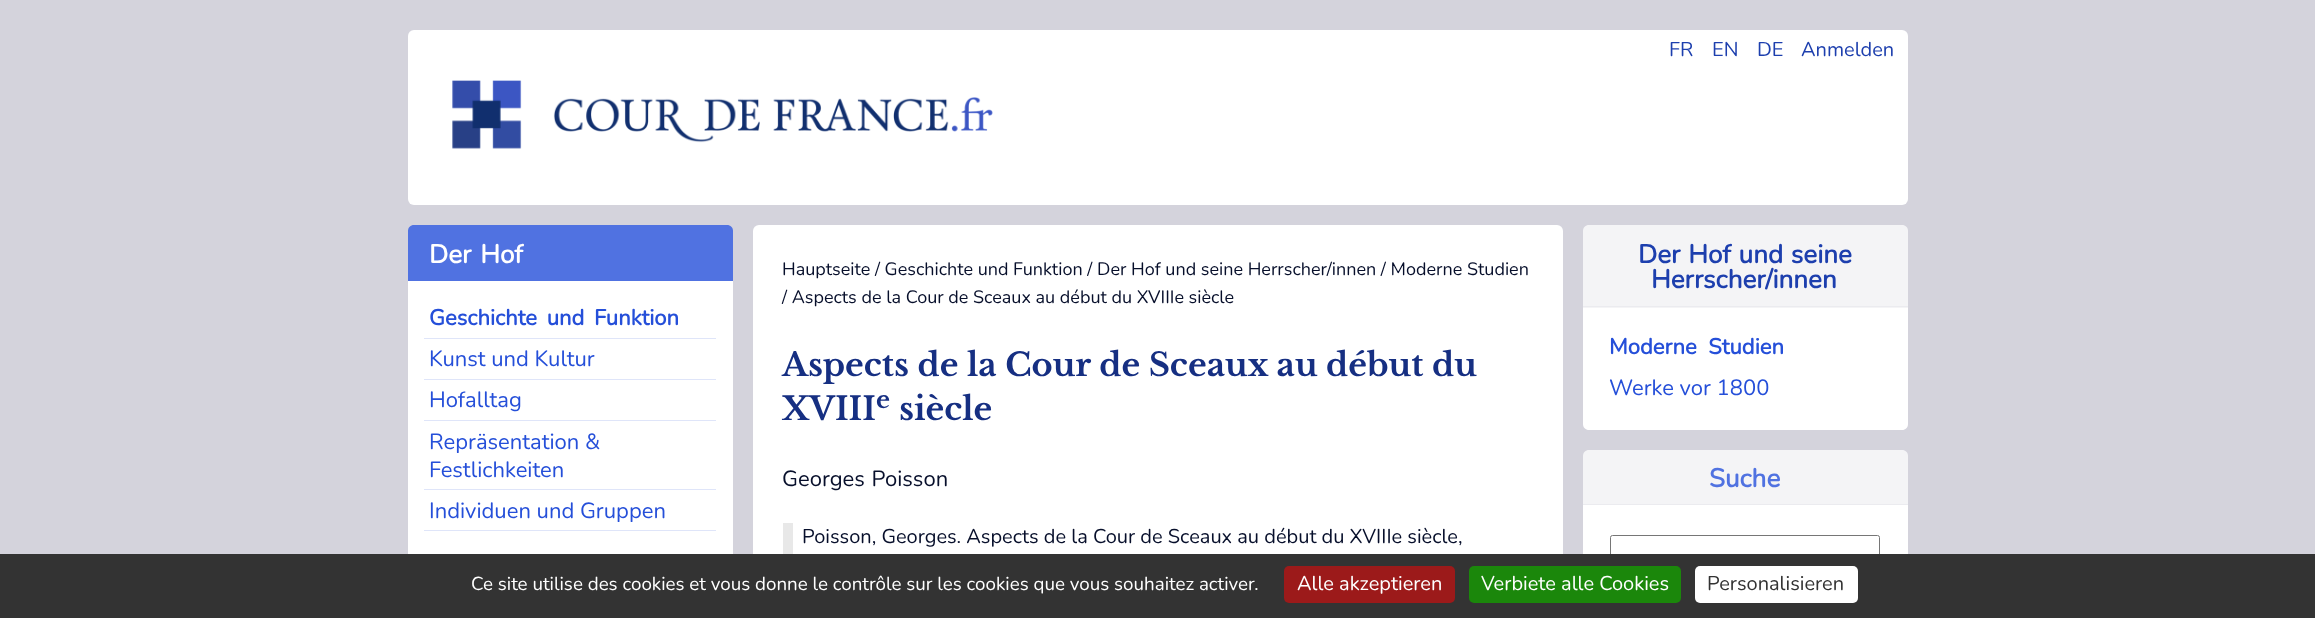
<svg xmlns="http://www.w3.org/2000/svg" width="2315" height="618">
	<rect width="100%" height="100%" fill="#D4D3DC" />
	<rect x="408" y="30" width="1500" height="175" rx="6" fill="#FFFFFF" />
	<g font-family="Nunito" font-size="20" fill="#1D3FAE">
		<text x="1669" y="56">FR</text>
		<text x="1712" y="56">EN</text>
		<text x="1757" y="56">DE</text>
		<text x="1801" y="56">Anmelden</text>
	</g>
	<image x="452" y="80" width="541" height="69" href="assets/img1.png" />
	<path d="M414 225H727C730.5 225 733 227.5 733 231V281H408V231C408 227.5 410.5 225 414 225Z" fill="#5072E1" />
	<text x="429" y="263" word-spacing="2" font-family="Nunito" font-size="26" font-weight="700" fill="#FFFFFF">Der Hof</text>
	<rect x="408" y="281" width="325" height="273" fill="#FFFFFF" />
	<text x="429" y="325" word-spacing="4" font-family="Nunito" font-size="22" font-weight="700" fill="#254FD9">Geschichte und Funktion</text>
	<rect x="424" y="338" width="292" height="1" fill="#DFE5F9" />
	<text x="429" y="366" font-family="Nunito" font-size="22" fill="#254FD9">Kunst und Kultur</text>
	<rect x="424" y="379" width="292" height="1" fill="#DFE5F9" />
	<text x="429" y="407" font-family="Nunito" font-size="22" fill="#254FD9">Hofalltag</text>
	<rect x="424" y="420" width="292" height="1" fill="#DFE5F9" />
	<g font-family="Nunito" font-size="22" fill="#254FD9">
		<text x="429" y="449">Repräsentation &amp;</text>
		<text x="429" y="477">Festlichkeiten</text>
	</g>
	<rect x="424" y="489" width="292" height="1" fill="#DFE5F9" />
	<text x="429" y="518" font-family="Nunito" font-size="22" fill="#254FD9">Individuen und Gruppen</text>
	<rect x="424" y="530" width="292" height="1" fill="#DFE5F9" />
	<rect x="753" y="225" width="810" height="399" rx="6" fill="#FFFFFF" />
	<g font-family="Nunito" font-size="18" fill="#070F2B">
		<text x="782" y="275">Hauptseite / Geschichte und Funktion / Der Hof und seine Herrscher/innen / Moderne Studien</text>
		<text x="782" y="303">/ Aspects de la Cour de Sceaux au début du XVIIIe siècle</text>
	</g>
	<g font-family="Libre Baskerville" font-size="32" font-weight="700" fill="#162F82">
		<text x="782" y="376">Aspects de la Cour de Sceaux au début du</text>
		<text x="782" y="420">XVIII</text>
	</g>
	<text x="876" y="408" font-family="Libre Baskerville" font-size="24" font-weight="700" fill="#162F82">e</text>
	<text x="899" y="420" font-family="Libre Baskerville" font-size="32" font-weight="700" fill="#162F82">siècle</text>
	<text x="782" y="486" word-spacing="1" font-family="Nunito" font-size="22" fill="#070F2B">Georges Poisson</text>
	<rect x="783" y="523" width="10" height="31" fill="#E8E8E8" />
	<text x="802" y="543" font-family="Nunito" font-size="20" fill="#070F2B">Poisson, Georges. Aspects de la Cour de Sceaux au début du XVIIIe siècle,</text>
	<path d="M1589 225H1902C1905.5 225 1908 227.5 1908 231V308H1583V231C1583 227.5 1585.5 225 1589 225Z" fill="#F4F4F6" />
	<rect x="1583" y="306" width="325" height="1" fill="#EBEBEF" />
	<g font-family="Nunito" font-size="26" font-weight="700" fill="#1D3FAE">
		<text x="1638" y="263" word-spacing="1">Der Hof und seine</text>
		<text x="1651" y="288">Herrscher/innen</text>
	</g>
	<path d="M1583 308H1908V424C1908 427.5 1905.5 430 1902 430H1589C1585.5 430 1583 427.5 1583 424Z" fill="#FFFFFF" />
	<text x="1609" y="354" word-spacing="6" font-family="Nunito" font-size="22" font-weight="700" fill="#254FD9">Moderne Studien</text>
	<text x="1609" y="395" font-family="Nunito" font-size="22" fill="#254FD9">Werke vor 1800</text>
	<path d="M1589 450H1902C1905.5 450 1908 452.5 1908 456V505H1583V456C1583 452.5 1585.5 450 1589 450Z" fill="#F4F4F6" />
	<rect x="1583" y="504" width="325" height="1" fill="#EBEBEF" />
	<text x="1709" y="487" font-family="Nunito" font-size="26" font-weight="700" fill="#5072E1">Suche</text>
	<rect x="1583" y="505" width="325" height="49" fill="#FFFFFF" />
	<rect x="1610.5" y="535.5" width="269" height="39" rx="2" fill="none" stroke="#767676" />
	<rect x="0" y="554" width="2315" height="64" fill="#333333" />
	<text x="471" y="590" font-family="Nunito" font-size="18.75" fill="#FFFFFF">Ce site utilise des cookies et vous donne le contrôle sur les cookies que vous souhaitez activer.</text>
	<rect x="1284" y="566" width="171" height="37" rx="5" fill="#9C1A1A" />
	<text x="1297" y="590" font-family="Nunito" font-size="20" fill="#FFFFFF">Alle akzeptieren</text>
	<rect x="1469" y="566" width="212" height="37" rx="5" fill="#1B870B" />
	<text x="1481" y="590" font-family="Nunito" font-size="20" fill="#FFFFFF">Verbiete alle Cookies</text>
	<rect x="1695" y="566" width="163" height="37" rx="5" fill="#FFFFFF" />
	<text x="1707" y="590" font-family="Nunito" font-size="20" fill="#333333">Personalisieren</text>
</svg>
